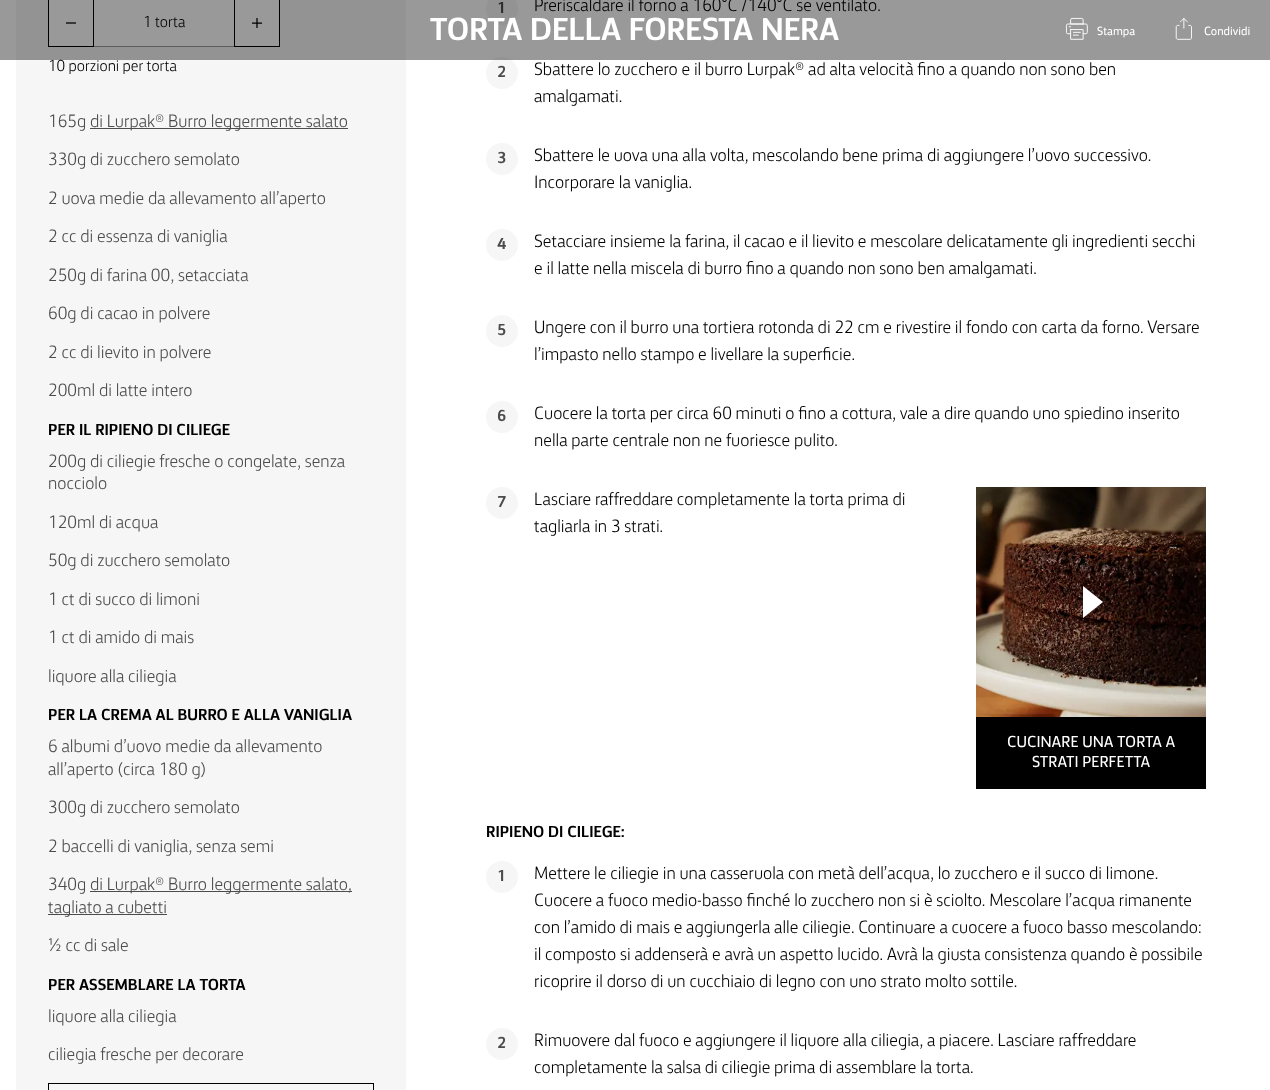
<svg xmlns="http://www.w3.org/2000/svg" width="1270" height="1090">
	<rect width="100%" height="100%" fill="#FFFFFF" />
	<rect x="16" y="0" width="390" height="1090" fill="#F6F6F6" />
	<rect x="48.5" y="-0.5" width="45" height="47" fill="#FFFFFF" stroke="#000000" />
	<rect x="66" y="22" width="10" height="2" fill="#5E5E5E" />
	<rect x="94" y="0" width="140" height="46" fill="#FFFFFF" />
	<rect x="94" y="46" width="140" height="1" fill="#999999" />
	<text x="143" y="27" font-family="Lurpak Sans" font-size="16" font-weight="300" fill="#000000">1 torta</text>
	<rect x="234.5" y="-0.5" width="45" height="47" fill="#FFFFFF" stroke="#000000" />
	<image x="252" y="18" width="10" height="10" href="assets/img1.png" />
	<text x="48" y="71" font-family="Lurpak Sans" font-size="16" font-weight="300" fill="#000000">10 porzioni per torta</text>
	<text x="48" y="127" font-family="Lurpak Sans" font-size="18" font-weight="300" fill="#4C4C4C">165g</text>
	<rect x="90" y="128" width="258" height="1" fill="#4C4C4C" />
	<g font-family="Lurpak Sans" font-size="18" font-weight="300" fill="#4C4C4C">
		<text x="90" y="127">di Lurpak® Burro leggermente salato</text>
		<text x="48" y="165">330g di zucchero semolato</text>
		<text x="48" y="204">2 uova medie da allevamento all’aperto</text>
		<text x="48" y="242">2 cc di essenza di vaniglia</text>
		<text x="48" y="281">250g di farina 00, setacciata</text>
		<text x="48" y="319">60g di cacao in polvere</text>
		<text x="48" y="358">2 cc di lievito in polvere</text>
		<text x="48" y="396">200ml di latte intero</text>
	</g>
	<text x="48" y="435" font-family="Lurpak Sans" font-size="16" font-weight="700" fill="#000000">PER IL RIPIENO DI CILIEGE</text>
	<g font-family="Lurpak Sans" font-size="18" font-weight="300" fill="#4C4C4C">
		<text x="48" y="467">200g di ciliegie fresche o congelate, senza</text>
		<text x="48" y="489">nocciolo</text>
		<text x="48" y="528">120ml di acqua</text>
		<text x="48" y="566">50g di zucchero semolato</text>
		<text x="48" y="605">1 ct di succo di limoni</text>
		<text x="48" y="643">1 ct di amido di mais</text>
		<text x="48" y="682">liquore alla ciliegia</text>
	</g>
	<text x="48" y="720" font-family="Lurpak Sans" font-size="16" font-weight="700" fill="#000000">PER LA CREMA AL BURRO E ALLA VANIGLIA</text>
	<g font-family="Lurpak Sans" font-size="18" font-weight="300" fill="#4C4C4C">
		<text x="48" y="752">6 albumi d’uovo medie da allevamento</text>
		<text x="48" y="775">all’aperto (circa 180 g)</text>
		<text x="48" y="813">300g di zucchero semolato</text>
		<text x="48" y="852">2 baccelli di vaniglia, senza semi</text>
		<text x="48" y="890">340g</text>
	</g>
	<rect x="90" y="891" width="262" height="1" fill="#4C4C4C" />
	<text x="90" y="890" font-family="Lurpak Sans" font-size="18" font-weight="300" fill="#4C4C4C">di Lurpak® Burro leggermente salato,</text>
	<rect x="48" y="914" width="119" height="1" fill="#4C4C4C" />
	<g font-family="Lurpak Sans" font-size="18" font-weight="300" fill="#4C4C4C">
		<text x="48" y="913">tagliato a cubetti</text>
		<text x="48" y="951">½ cc di sale</text>
	</g>
	<text x="48" y="990" font-family="Lurpak Sans" font-size="16" font-weight="700" fill="#000000">PER ASSEMBLARE LA TORTA</text>
	<g font-family="Lurpak Sans" font-size="18" font-weight="300" fill="#4C4C4C">
		<text x="48" y="1022">liquore alla ciliegia</text>
		<text x="48" y="1060">ciliegia fresche per decorare</text>
	</g>
	<rect x="48.5" y="1083.5" width="325" height="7" fill="none" stroke="#000000" />
	<circle cx="502" cy="9" r="16" fill="#F6F6F6" />
	<text x="497" y="13" font-family="Lurpak Sans" font-size="16" font-weight="700" fill="#4C4C4C">1</text>
	<text x="534" y="11" font-family="Lurpak Sans" font-size="18" font-weight="300" fill="#000000">Preriscaldare il forno a 160°C /140°C se ventilato.</text>
	<circle cx="502" cy="73" r="16" fill="#F6F6F6" />
	<text x="497" y="77" font-family="Lurpak Sans" font-size="16" font-weight="700" fill="#4C4C4C">2</text>
	<g font-family="Lurpak Sans" font-size="18" font-weight="300" fill="#000000">
		<text x="534" y="75">Sbattere lo zucchero e il burro Lurpak® ad alta velocità fino a quando non sono ben</text>
		<text x="534" y="102">amalgamati.</text>
	</g>
	<circle cx="502" cy="159" r="16" fill="#F6F6F6" />
	<text x="497" y="163" font-family="Lurpak Sans" font-size="16" font-weight="700" fill="#4C4C4C">3</text>
	<g font-family="Lurpak Sans" font-size="18" font-weight="300" fill="#000000">
		<text x="534" y="161">Sbattere le uova una alla volta, mescolando bene prima di aggiungere l’uovo successivo.</text>
		<text x="534" y="188">Incorporare la vaniglia.</text>
	</g>
	<circle cx="502" cy="245" r="16" fill="#F6F6F6" />
	<text x="497" y="249" font-family="Lurpak Sans" font-size="16" font-weight="700" fill="#4C4C4C">4</text>
	<g font-family="Lurpak Sans" font-size="18" font-weight="300" fill="#000000">
		<text x="534" y="247">Setacciare insieme la farina, il cacao e il lievito e mescolare delicatamente gli ingredienti secchi</text>
		<text x="534" y="274">e il latte nella miscela di burro fino a quando non sono ben amalgamati.</text>
	</g>
	<circle cx="502" cy="331" r="16" fill="#F6F6F6" />
	<text x="497" y="335" font-family="Lurpak Sans" font-size="16" font-weight="700" fill="#4C4C4C">5</text>
	<g font-family="Lurpak Sans" font-size="18" font-weight="300" fill="#000000">
		<text x="534" y="333">Ungere con il burro una tortiera rotonda di 22 cm e rivestire il fondo con carta da forno. Versare</text>
		<text x="534" y="360">l’impasto nello stampo e livellare la superficie.</text>
	</g>
	<circle cx="502" cy="417" r="16" fill="#F6F6F6" />
	<text x="497" y="421" font-family="Lurpak Sans" font-size="16" font-weight="700" fill="#4C4C4C">6</text>
	<g font-family="Lurpak Sans" font-size="18" font-weight="300" fill="#000000">
		<text x="534" y="419">Cuocere la torta per circa 60 minuti o fino a cottura, vale a dire quando uno spiedino inserito</text>
		<text x="534" y="446">nella parte centrale non ne fuoriesce pulito.</text>
	</g>
	<circle cx="502" cy="503" r="16" fill="#F6F6F6" />
	<text x="497" y="507" font-family="Lurpak Sans" font-size="16" font-weight="700" fill="#4C4C4C">7</text>
	<g font-family="Lurpak Sans" font-size="18" font-weight="300" fill="#000000">
		<text x="534" y="505">Lasciare raffreddare completamente la torta prima di</text>
		<text x="534" y="532">tagliarla in 3 strati.</text>
	</g>
	<image x="976" y="487" width="230" height="230" href="assets/img2.png" />
	<image x="1083" y="586" width="20" height="32" href="assets/img3.png" />
	<rect x="976" y="717" width="230" height="72" fill="#000000" />
	<g font-family="Lurpak Sans" font-size="16" fill="#FFFFFF">
		<text x="1007" y="747">CUCINARE UNA TORTA A</text>
		<text x="1032" y="767">STRATI PERFETTA</text>
	</g>
	<text x="486" y="837" font-family="Lurpak Sans" font-size="16" font-weight="700" fill="#000000">RIPIENO DI CILIEGE:</text>
	<circle cx="502" cy="877" r="16" fill="#F6F6F6" />
	<text x="497" y="881" font-family="Lurpak Sans" font-size="16" font-weight="700" fill="#4C4C4C">1</text>
	<g font-family="Lurpak Sans" font-size="18" font-weight="300" fill="#000000">
		<text x="534" y="879">Mettere le ciliegie in una casseruola con metà dell’acqua, lo zucchero e il succo di limone.</text>
		<text x="534" y="906">Cuocere a fuoco medio-basso finché lo zucchero non si è sciolto. Mescolare l’acqua rimanente</text>
		<text x="534" y="933">con l’amido di mais e aggiungerla alle ciliegie. Continuare a cuocere a fuoco basso mescolando:</text>
		<text x="534" y="960">il composto si addenserà e avrà un aspetto lucido. Avrà la giusta consistenza quando è possibile</text>
		<text x="534" y="987">ricoprire il dorso di un cucchiaio di legno con uno strato molto sottile.</text>
	</g>
	<circle cx="502" cy="1044" r="16" fill="#F6F6F6" />
	<text x="497" y="1048" font-family="Lurpak Sans" font-size="16" font-weight="700" fill="#4C4C4C">2</text>
	<g font-family="Lurpak Sans" font-size="18" font-weight="300" fill="#000000">
		<text x="534" y="1046">Rimuovere dal fuoco e aggiungere il liquore alla ciliegia, a piacere. Lasciare raffreddare</text>
		<text x="534" y="1073">completamente la salsa di ciliegie prima di assemblare la torta.</text>
	</g>
	<rect x="0" y="0" width="1270" height="60" fill="#000000" fill-opacity="0.4" />
	<text x="430" y="40" font-family="Lurpak Sans" font-size="32" font-weight="700" fill="#FFFFFF">TORTA DELLA FORESTA NERA</text>
	<image x="1065" y="17" width="23" height="23" href="assets/img4.png" />
	<text x="1097" y="35" font-family="Lurpak Sans" font-size="12" fill="#FFFFFF">Stampa</text>
	<image x="1175" y="18" width="17" height="22" href="assets/img5.png" />
	<text x="1204" y="35" font-family="Lurpak Sans" font-size="12" fill="#FFFFFF">Condividi</text>
</svg>
